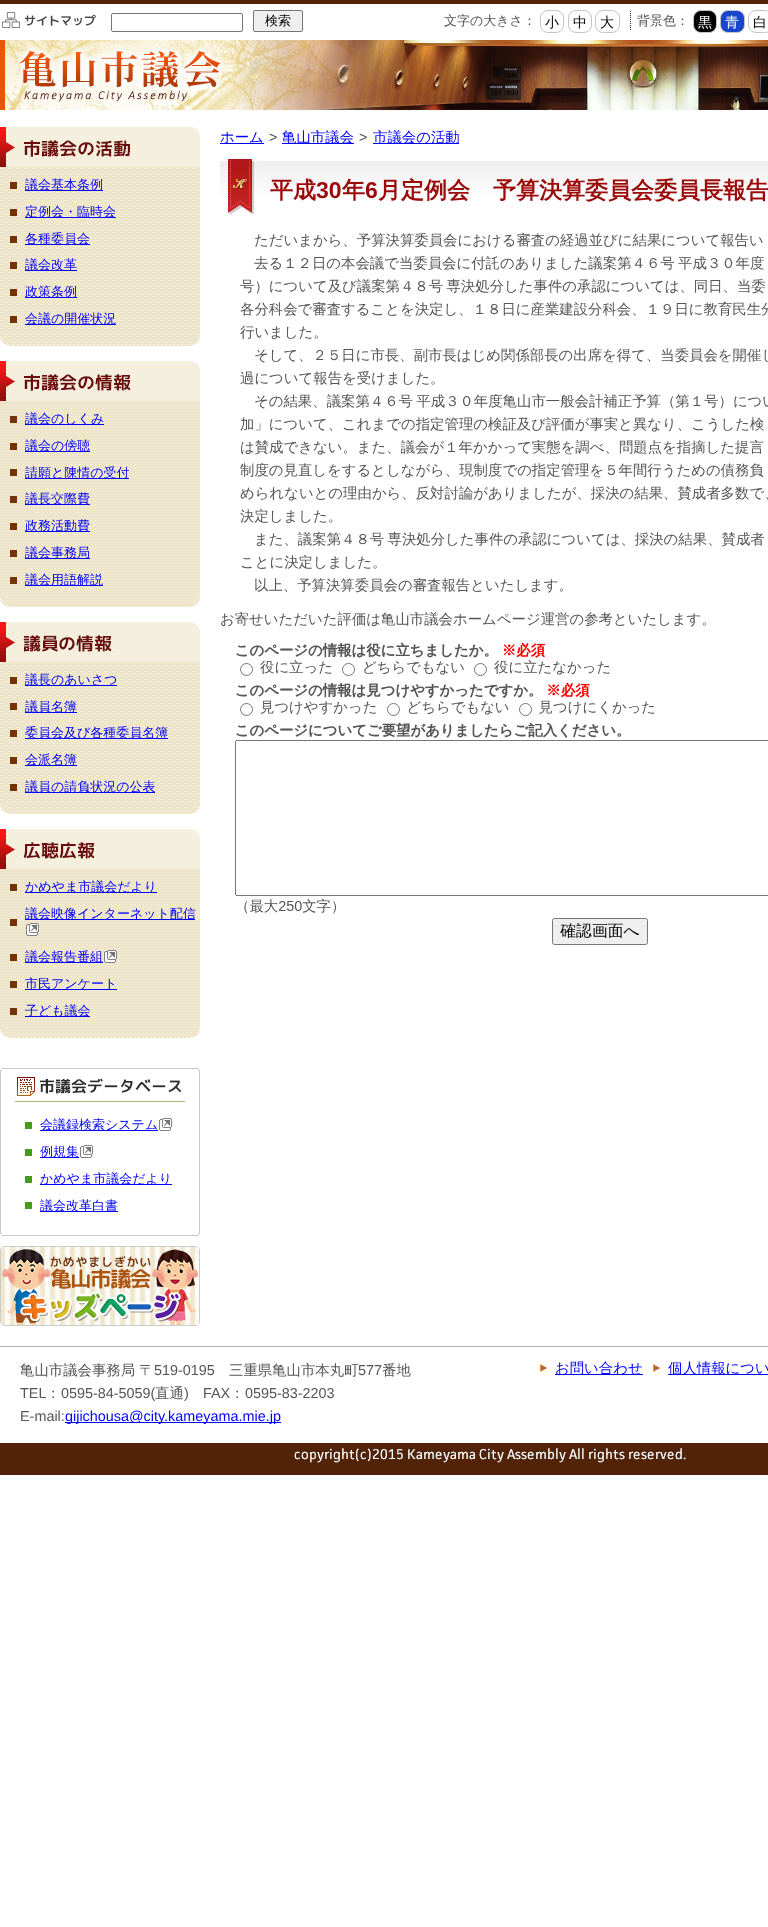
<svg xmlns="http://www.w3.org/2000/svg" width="768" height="1927">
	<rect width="100%" height="100%" fill="#FFFFFF" />
	<rect x="0" y="0" width="768" height="4" fill="#522306" />
	<image x="2" y="12" width="94" height="16" href="assets/img1.png" />
	<rect x="111.5" y="13.5" width="131" height="18" rx="1.5" fill="none" stroke="#767676" />
	<rect x="253.5" y="10.5" width="49" height="21" rx="1.5" fill="#EFEFEF" stroke="#767676" />
	<text x="265" y="25" font-family="WenQuanYi Zen Hei" font-size="13" font-weight="500" fill="#000000">検索</text>
	<text x="444" y="25" font-family="WenQuanYi Zen Hei" font-size="13" font-weight="500" fill="#555555">文字の大きさ：</text>
	<rect x="540.5" y="10.5" width="23" height="22" rx="7.5" fill="none" stroke="#C4C5C5" />
	<text x="545" y="27" font-family="WenQuanYi Zen Hei" font-size="14" font-weight="500" fill="#000000">小</text>
	<rect x="568.5" y="10.5" width="23" height="22" rx="7.5" fill="none" stroke="#C4C5C5" />
	<text x="573" y="27" font-family="WenQuanYi Zen Hei" font-size="14" font-weight="500" fill="#000000">中</text>
	<rect x="595.5" y="10.5" width="24" height="22" rx="7.5" fill="none" stroke="#C4C5C5" />
	<text x="600" y="27" font-family="WenQuanYi Zen Hei" font-size="14" font-weight="500" fill="#000000">大</text>
	<path d="M630.5 11V30" fill="none" stroke="#333333" stroke-dasharray="1 1" />
	<text x="637" y="25" font-family="WenQuanYi Zen Hei" font-size="13" font-weight="500" fill="#555555">背景色：</text>
	<rect x="693.5" y="10.5" width="23" height="22" rx="7.5" fill="#000000" stroke="#C4C5C5" />
	<text x="698" y="27" font-family="WenQuanYi Zen Hei" font-size="14" font-weight="500" fill="#FFFFFF">黒</text>
	<rect x="720.5" y="10.5" width="24" height="22" rx="7.5" fill="#1745CC" stroke="#C4C5C5" />
	<text x="725" y="27" font-family="WenQuanYi Zen Hei" font-size="14" font-weight="500" fill="#FFFFFF">青</text>
	<rect x="748.5" y="10.5" width="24" height="22" rx="7.5" fill="none" stroke="#C4C5C5" />
	<text x="753" y="27" font-family="WenQuanYi Zen Hei" font-size="14" font-weight="500" fill="#000000">白</text>
	<image x="0" y="40" width="768" height="70" href="assets/img2.png" />
	<image x="0" y="167" width="200" height="179" href="assets/img3.png" />
	<image x="0" y="127" width="200" height="40" href="assets/img4.png" />
	<rect x="10" y="182" width="7" height="7" fill="#753205" />
	<rect x="25" y="190" width="78" height="1" fill="#0000FF" />
	<text x="25" y="189" font-family="WenQuanYi Zen Hei" font-size="13" font-weight="500" fill="#0000FF">議会基本条例</text>
	<rect x="10" y="209" width="7" height="7" fill="#753205" />
	<rect x="25" y="217" width="91" height="1" fill="#0000FF" />
	<text x="25" y="216" font-family="WenQuanYi Zen Hei" font-size="13" font-weight="500" fill="#0000FF">定例会・臨時会</text>
	<rect x="10" y="236" width="7" height="7" fill="#753205" />
	<rect x="25" y="244" width="65" height="1" fill="#0000FF" />
	<text x="25" y="243" font-family="WenQuanYi Zen Hei" font-size="13" font-weight="500" fill="#0000FF">各種委員会</text>
	<rect x="10" y="262" width="7" height="7" fill="#753205" />
	<rect x="25" y="270" width="52" height="1" fill="#0000FF" />
	<text x="25" y="269" font-family="WenQuanYi Zen Hei" font-size="13" font-weight="500" fill="#0000FF">議会改革</text>
	<rect x="10" y="289" width="7" height="7" fill="#753205" />
	<rect x="25" y="297" width="52" height="1" fill="#0000FF" />
	<text x="25" y="296" font-family="WenQuanYi Zen Hei" font-size="13" font-weight="500" fill="#0000FF">政策条例</text>
	<rect x="10" y="316" width="7" height="7" fill="#753205" />
	<rect x="25" y="324" width="91" height="1" fill="#0000FF" />
	<text x="25" y="323" font-family="WenQuanYi Zen Hei" font-size="13" font-weight="500" fill="#0000FF">会議の開催状況</text>
	<image x="0" y="401" width="200" height="206" href="assets/img5.png" />
	<image x="0" y="361" width="200" height="40" href="assets/img6.png" />
	<rect x="10" y="416" width="7" height="7" fill="#753205" />
	<rect x="25" y="424" width="79" height="1" fill="#0000FF" />
	<text x="25" y="423" font-family="WenQuanYi Zen Hei" font-size="13" font-weight="500" fill="#0000FF">議会のしくみ</text>
	<rect x="10" y="443" width="7" height="7" fill="#753205" />
	<rect x="25" y="451" width="65" height="1" fill="#0000FF" />
	<text x="25" y="450" font-family="WenQuanYi Zen Hei" font-size="13" font-weight="500" fill="#0000FF">議会の傍聴</text>
	<rect x="10" y="469" width="7" height="7" fill="#753205" />
	<rect x="25" y="478" width="104" height="1" fill="#0000FF" />
	<text x="25" y="477" font-family="WenQuanYi Zen Hei" font-size="13" font-weight="500" fill="#0000FF">請願と陳情の受付</text>
	<rect x="10" y="496" width="7" height="7" fill="#753205" />
	<rect x="25" y="504" width="65" height="1" fill="#0000FF" />
	<text x="25" y="503" font-family="WenQuanYi Zen Hei" font-size="13" font-weight="500" fill="#0000FF">議長交際費</text>
	<rect x="10" y="523" width="7" height="7" fill="#753205" />
	<rect x="25" y="531" width="65" height="1" fill="#0000FF" />
	<text x="25" y="530" font-family="WenQuanYi Zen Hei" font-size="13" font-weight="500" fill="#0000FF">政務活動費</text>
	<rect x="10" y="550" width="7" height="7" fill="#753205" />
	<rect x="25" y="558" width="65" height="1" fill="#0000FF" />
	<text x="25" y="557" font-family="WenQuanYi Zen Hei" font-size="13" font-weight="500" fill="#0000FF">議会事務局</text>
	<rect x="10" y="577" width="7" height="7" fill="#753205" />
	<rect x="25" y="585" width="78" height="1" fill="#0000FF" />
	<text x="25" y="584" font-family="WenQuanYi Zen Hei" font-size="13" font-weight="500" fill="#0000FF">議会用語解説</text>
	<image x="0" y="662" width="200" height="152" href="assets/img7.png" />
	<image x="0" y="622" width="200" height="40" href="assets/img8.png" />
	<rect x="10" y="677" width="7" height="7" fill="#753205" />
	<rect x="25" y="685" width="92" height="1" fill="#0000FF" />
	<text x="25" y="684" font-family="WenQuanYi Zen Hei" font-size="13" font-weight="500" fill="#0000FF">議長のあいさつ</text>
	<rect x="10" y="703" width="7" height="7" fill="#753205" />
	<rect x="25" y="712" width="52" height="1" fill="#0000FF" />
	<text x="25" y="711" font-family="WenQuanYi Zen Hei" font-size="13" font-weight="500" fill="#0000FF">議員名簿</text>
	<rect x="10" y="730" width="7" height="7" fill="#753205" />
	<rect x="25" y="738" width="143" height="1" fill="#0000FF" />
	<text x="25" y="737" font-family="WenQuanYi Zen Hei" font-size="13" font-weight="500" fill="#0000FF">委員会及び各種委員名簿</text>
	<rect x="10" y="757" width="7" height="7" fill="#753205" />
	<rect x="25" y="765" width="52" height="1" fill="#0000FF" />
	<text x="25" y="764" font-family="WenQuanYi Zen Hei" font-size="13" font-weight="500" fill="#0000FF">会派名簿</text>
	<rect x="10" y="784" width="7" height="7" fill="#753205" />
	<rect x="25" y="792" width="130" height="1" fill="#0000FF" />
	<text x="25" y="791" font-family="WenQuanYi Zen Hei" font-size="13" font-weight="500" fill="#0000FF">議員の請負状況の公表</text>
	<image x="0" y="869" width="200" height="169" href="assets/img9.png" />
	<image x="0" y="829" width="200" height="40" href="assets/img10.png" />
	<rect x="10" y="884" width="7" height="7" fill="#753205" />
	<rect x="25" y="892" width="132" height="1" fill="#0000FF" />
	<text x="25" y="891" font-family="WenQuanYi Zen Hei" font-size="13" font-weight="500" fill="#0000FF">かめやま市議会だより</text>
	<rect x="10" y="919" width="7" height="7" fill="#753205" />
	<rect x="25" y="919" width="170" height="1" fill="#0000FF" />
	<text x="25" y="918" font-family="WenQuanYi Zen Hei" font-size="13" font-weight="500" fill="#0000FF">議会映像インターネット配信</text>
	<image x="26" y="923" width="13" height="13" href="assets/img11.png" />
	<rect x="10" y="954" width="7" height="7" fill="#753205" />
	<rect x="25" y="962" width="78" height="1" fill="#0000FF" />
	<text x="25" y="961" font-family="WenQuanYi Zen Hei" font-size="13" font-weight="500" fill="#0000FF">議会報告番組</text>
	<image x="104" y="950" width="13" height="13" href="assets/img12.png" />
	<rect x="10" y="981" width="7" height="7" fill="#753205" />
	<rect x="25" y="989" width="92" height="1" fill="#0000FF" />
	<text x="25" y="988" font-family="WenQuanYi Zen Hei" font-size="13" font-weight="500" fill="#0000FF">市民アンケート</text>
	<rect x="10" y="1008" width="7" height="7" fill="#753205" />
	<rect x="25" y="1016" width="65" height="1" fill="#0000FF" />
	<text x="25" y="1015" font-family="WenQuanYi Zen Hei" font-size="13" font-weight="500" fill="#0000FF">子ども議会</text>
	<rect x="0.5" y="1068.5" width="199" height="167" rx="2.5" fill="none" stroke="#CCCCCC" />
	<image x="15" y="1077" width="170" height="25" href="assets/img13.png" />
	<rect x="25" y="1122" width="7" height="7" fill="#469A1C" />
	<rect x="40" y="1130" width="118" height="1" fill="#0000FF" />
	<text x="40" y="1129" font-family="WenQuanYi Zen Hei" font-size="13" font-weight="500" fill="#0000FF">会議録検索システム</text>
	<image x="159" y="1118" width="13" height="13" href="assets/img14.png" />
	<rect x="25" y="1149" width="7" height="7" fill="#469A1C" />
	<rect x="40" y="1157" width="39" height="1" fill="#0000FF" />
	<text x="40" y="1156" font-family="WenQuanYi Zen Hei" font-size="13" font-weight="500" fill="#0000FF">例規集</text>
	<image x="80" y="1145" width="13" height="13" href="assets/img14.png" />
	<rect x="25" y="1176" width="7" height="7" fill="#469A1C" />
	<rect x="40" y="1184" width="132" height="1" fill="#0000FF" />
	<text x="40" y="1183" font-family="WenQuanYi Zen Hei" font-size="13" font-weight="500" fill="#0000FF">かめやま市議会だより</text>
	<rect x="25" y="1202" width="7" height="7" fill="#469A1C" />
	<rect x="40" y="1211" width="78" height="1" fill="#0000FF" />
	<text x="40" y="1210" font-family="WenQuanYi Zen Hei" font-size="13" font-weight="500" fill="#0000FF">議会改革白書</text>
	<image x="0" y="1246" width="200" height="80" href="assets/img15.png" />
	<rect x="220" y="143" width="44" height="1" fill="#0000FF" />
	<text x="220" y="142" font-family="WenQuanYi Zen Hei" font-size="14.4" font-weight="500" fill="#0000FF">ホーム</text>
	<text x="269" y="142" font-family="Liberation Sans" font-size="14.4" fill="#555555">&gt;</text>
	<rect x="282" y="143" width="72" height="1" fill="#0000FF" />
	<text x="282" y="142" font-family="WenQuanYi Zen Hei" font-size="14.4" font-weight="500" fill="#0000FF">亀山市議会</text>
	<text x="359" y="142" font-family="Liberation Sans" font-size="14.4" fill="#555555">&gt;</text>
	<rect x="373" y="143" width="86" height="1" fill="#0000FF" />
	<text x="373" y="142" font-family="WenQuanYi Zen Hei" font-size="14.4" font-weight="500" fill="#0000FF">市議会の活動</text>
	<image x="220" y="159" width="548" height="56" href="assets/img16.png" />
	<text x="270" y="198" font-family="WenQuanYi Zen Hei" font-size="23" font-weight="700" fill="#9C0909">平成</text>
	<text x="316" y="198" font-family="Liberation Sans" font-size="23" font-weight="700" fill="#9C0909">30</text>
	<text x="342" y="198" font-family="WenQuanYi Zen Hei" font-size="23" font-weight="700" fill="#9C0909">年</text>
	<text x="365" y="198" font-family="Liberation Sans" font-size="23" font-weight="700" fill="#9C0909">6</text>
	<text x="378" y="198" font-family="WenQuanYi Zen Hei" font-size="23" font-weight="700" fill="#9C0909">月定例会　予算決算委員会委員長報告</text>
	<g font-family="WenQuanYi Zen Hei" font-size="14.4" font-weight="500" fill="#555555">
		<text x="254" y="245">ただいまから、予算決算委員会における審査の経過並びに結果について報告い</text>
		<text x="254" y="268" word-spacing="-1">去る１２日の本会議で当委員会に付託のありました議案第４６号 平成３０年度</text>
		<text x="240" y="291" word-spacing="-1">号）について及び議案第４８号 専決処分した事件の承認については、同日、当委</text>
		<text x="240" y="314">各分科会で審査することを決定し、１８日に産業建設分科会、１９日に教育民生分</text>
		<text x="240" y="337">行いました。</text>
		<text x="254" y="360">そして、２５日に市長、副市長はじめ関係部長の出席を得て、当委員会を開催し</text>
		<text x="240" y="383">過について報告を受けました。</text>
		<text x="254" y="406" word-spacing="-1">その結果、議案第４６号 平成３０年度亀山市一般会計補正予算（第１号）につい</text>
		<text x="240" y="429">加」について、これまでの指定管理の検証及び評価が事実と異なり、こうした検</text>
		<text x="240" y="452">は賛成できない。また、議会が１年かかって実態を調べ、問題点を指摘した提言</text>
		<text x="240" y="475">制度の見直しをするとしながら、現制度での指定管理を５年間行うための債務負</text>
		<text x="240" y="498">められないとの理由から、反対討論がありましたが、採決の結果、賛成者多数で、</text>
		<text x="240" y="521">決定しました。</text>
		<text x="254" y="544" word-spacing="-1">また、議案第４８号 専決処分した事件の承認については、採決の結果、賛成者</text>
		<text x="240" y="567">ことに決定しました。</text>
		<text x="254" y="590">以上、予算決算委員会の審査報告といたします。</text>
	</g>
	<image x="221" y="612" width="547" height="333" href="assets/img17.png" />
	<rect x="0" y="1346" width="768" height="1" fill="#B2B2B2" />
	<text x="20" y="1375" font-family="WenQuanYi Zen Hei" font-size="14.4" font-weight="500" fill="#555555">亀山市議会事務局 〒</text>
	<text x="154" y="1375" font-family="Liberation Sans" font-size="14.4" fill="#555555">519-0195</text>
	<text x="229" y="1375" font-family="WenQuanYi Zen Hei" font-size="14.4" font-weight="500" fill="#555555">三重県亀山市本丸町</text>
	<text x="358" y="1375" font-family="Liberation Sans" font-size="14.4" fill="#555555">577</text>
	<text x="382" y="1375" font-family="WenQuanYi Zen Hei" font-size="14.4" font-weight="500" fill="#555555">番地</text>
	<text x="20" y="1398" font-family="Liberation Sans" font-size="14.4" fill="#555555">TEL</text>
	<text x="46" y="1398" font-family="WenQuanYi Zen Hei" font-size="14.4" font-weight="500" fill="#555555">：</text>
	<text x="61" y="1398" font-family="Liberation Sans" font-size="14.4" fill="#555555">0595-84-5059(</text>
	<text x="155" y="1398" font-family="WenQuanYi Zen Hei" font-size="14.4" font-weight="500" fill="#555555">直通</text>
	<g font-family="Liberation Sans" font-size="14.4" fill="#555555">
		<text x="184" y="1398">)</text>
		<text x="203" y="1398">FAX</text>
	</g>
	<text x="230" y="1398" font-family="WenQuanYi Zen Hei" font-size="14.4" font-weight="500" fill="#555555">：</text>
	<g font-family="Liberation Sans" font-size="14.4" fill="#555555">
		<text x="245" y="1398">0595-83-2203</text>
		<text x="20" y="1421">E-mail:</text>
	</g>
	<rect x="65" y="1422" width="216" height="1" fill="#0000FF" />
	<text x="65" y="1421" font-family="Liberation Sans" font-size="14.4" fill="#0000FF">gijichousa@city.kameyama.mie.jp</text>
	<image x="540" y="1364" width="8" height="8" href="assets/img18.png" />
	<rect x="555" y="1374" width="88" height="1" fill="#0000FF" />
	<text x="555" y="1373" font-family="WenQuanYi Zen Hei" font-size="14.4" font-weight="500" fill="#0000FF">お問い合わせ</text>
	<image x="653" y="1364" width="8" height="8" href="assets/img18.png" />
	<rect x="668" y="1374" width="100" height="1" fill="#0000FF" />
	<text x="668" y="1373" font-family="WenQuanYi Zen Hei" font-size="14.4" font-weight="500" fill="#0000FF">個人情報につい</text>
	<rect x="0" y="1443" width="768" height="32" fill="#522306" />
	<image x="294" y="1448" width="392" height="15" href="assets/img19.png" />
</svg>
